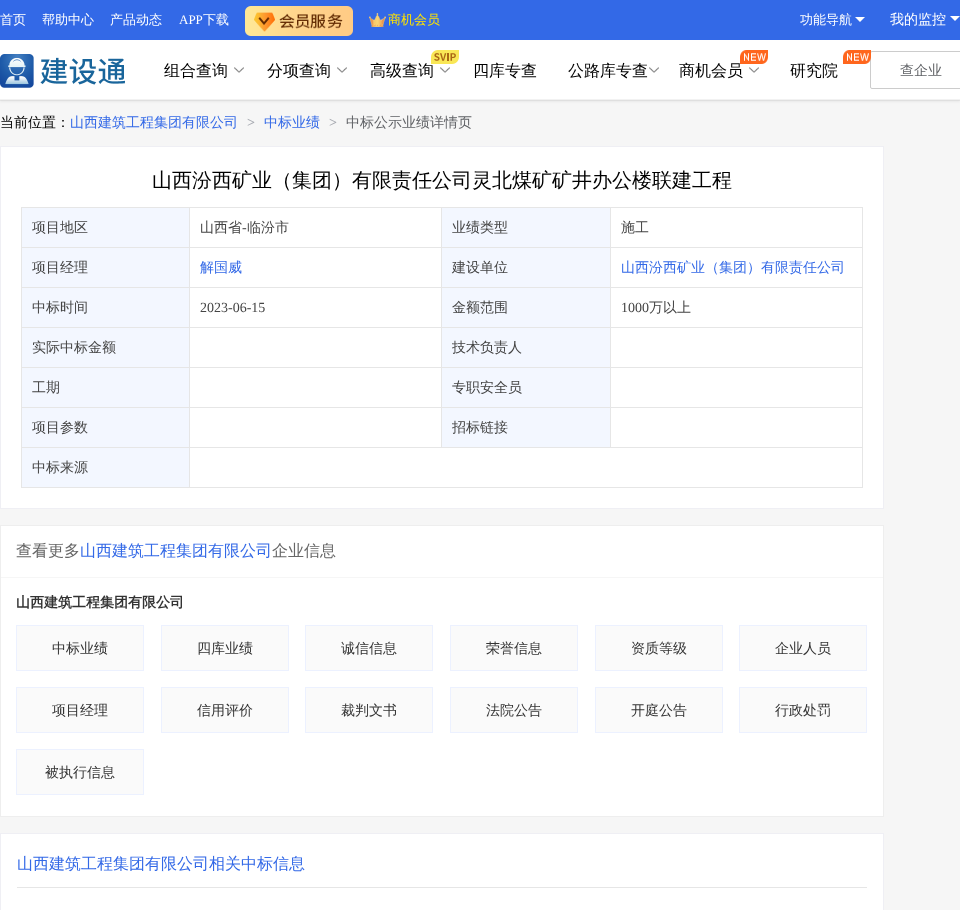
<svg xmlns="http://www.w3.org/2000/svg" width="960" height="910">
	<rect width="100%" height="100%" fill="#F6F6F6" />
	<rect x="0" y="0" width="960" height="40" fill="#3369E7" />
	<g font-family="WenQuanYi Zen Hei" font-size="13" font-weight="500" fill="#FFFFFF">
		<text x="0" y="24">首页</text>
		<text x="42" y="24">帮助中心</text>
		<text x="110" y="24">产品动态</text>
	</g>
	<text x="179" y="24" font-family="Liberation Serif" font-size="13" fill="#FFFFFF">APP</text>
	<text x="203" y="24" font-family="WenQuanYi Zen Hei" font-size="13" font-weight="500" fill="#FFFFFF">下载</text>
	<image x="245" y="6" width="108" height="30" href="assets/img1.png" />
	<image x="369" y="13" width="17" height="14" href="assets/img2.png" />
	<text x="388" y="24" font-family="WenQuanYi Zen Hei" font-size="13" font-weight="500" fill="#FFE400">商机会员</text>
	<text x="800" y="24" font-family="WenQuanYi Zen Hei" font-size="13" font-weight="500" fill="#FFFFFF">功能导航</text>
	<path d="M855 17H865L860 22Z" fill="#FFFFFF" />
	<text x="890" y="24" font-family="WenQuanYi Zen Hei" font-size="14" font-weight="500" fill="#FFFFFF">我的监控</text>
	<path d="M950 16H960L955 21Z" fill="#FFFFFF" />
	<rect x="0" y="100" width="960" height="1" fill="#EAEAEA" />
	<rect x="0" y="42" width="960" height="60" fill="#000000" fill-opacity="0.05" filter="blur(1px)" />
	<rect x="0" y="40" width="960" height="59" fill="#FFFFFF" />
	<rect x="0" y="99" width="960" height="1" fill="#F2F2F2" />
	<image x="0" y="54" width="125" height="34" href="assets/img3.png" />
	<text x="164" y="76" font-family="WenQuanYi Zen Hei" font-size="16" font-weight="500" fill="#000000">组合查询</text>
	<image x="234" y="67" width="10" height="6" href="assets/img4.png" />
	<text x="267" y="76" font-family="WenQuanYi Zen Hei" font-size="16" font-weight="500" fill="#000000">分项查询</text>
	<image x="337" y="67" width="10" height="6" href="assets/img5.png" />
	<text x="370" y="76" font-family="WenQuanYi Zen Hei" font-size="16" font-weight="500" fill="#000000">高级查询</text>
	<image x="431" y="50" width="28" height="14" href="assets/img6.png" />
	<image x="440" y="67" width="10" height="6" href="assets/img5.png" />
	<g font-family="WenQuanYi Zen Hei" font-size="16" font-weight="500" fill="#000000">
		<text x="473" y="76">四库专查</text>
		<text x="568" y="76">公路库专查</text>
	</g>
	<image x="649" y="67" width="10" height="6" href="assets/img4.png" />
	<text x="679" y="76" font-family="WenQuanYi Zen Hei" font-size="16" font-weight="500" fill="#000000">商机会员</text>
	<image x="740" y="50" width="28" height="14" href="assets/img7.png" />
	<image x="749" y="67" width="10" height="6" href="assets/img5.png" />
	<rect x="870.5" y="51.5" width="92" height="37" rx="1.5" fill="none" stroke="#CCCCCC" />
	<image x="843" y="50" width="28" height="14" href="assets/img8.png" />
	<text x="790" y="76" font-family="WenQuanYi Zen Hei" font-size="16" font-weight="500" fill="#000000">研究院</text>
	<text x="900" y="75" font-family="WenQuanYi Zen Hei" font-size="14" font-weight="500" fill="#606266">查企业</text>
	<text x="0" y="127" font-family="WenQuanYi Zen Hei" font-size="14" font-weight="500" fill="#000000">当前位置：</text>
	<text x="70" y="127" font-family="WenQuanYi Zen Hei" font-size="14" font-weight="500" fill="#3369E7">山西建筑工程集团有限公司</text>
	<text x="247" y="127" font-family="Liberation Serif" font-size="14" font-weight="700" fill="#A8ABB2">&gt;</text>
	<text x="264" y="127" font-family="WenQuanYi Zen Hei" font-size="14" font-weight="500" fill="#3369E7">中标业绩</text>
	<text x="329" y="127" font-family="Liberation Serif" font-size="14" font-weight="700" fill="#A8ABB2">&gt;</text>
	<text x="346" y="127" font-family="WenQuanYi Zen Hei" font-size="14" font-weight="500" fill="#606266">中标公示业绩详情页</text>
	<rect x="0.5" y="146.5" width="883" height="362" fill="#FFFFFF" stroke="#EFEFF4" />
	<text x="152" y="187" font-family="WenQuanYi Zen Hei" font-size="20" font-weight="500" fill="#000000">山西汾西矿业（集团）有限责任公司灵北煤矿矿井办公楼联建工程</text>
	<rect x="22" y="208" width="167" height="39" fill="#F3F7FF" />
	<rect x="610" y="207" width="253" height="1" fill="#E6E6E6" />
	<rect x="610" y="247" width="253" height="1" fill="#E6E6E6" />
	<rect x="610" y="287" width="253" height="1" fill="#E6E6E6" />
	<rect x="610" y="327" width="253" height="1" fill="#E6E6E6" />
	<rect x="610" y="367" width="253" height="1" fill="#E6E6E6" />
	<rect x="610" y="407" width="253" height="1" fill="#E6E6E6" />
	<rect x="189" y="447" width="674" height="1" fill="#E6E6E6" />
	<rect x="610" y="407" width="1" height="41" fill="#E6E6E6" />
	<rect x="441" y="407" width="170" height="1" fill="#E6E6E6" />
	<rect x="610" y="367" width="1" height="41" fill="#E6E6E6" />
	<rect x="441" y="367" width="170" height="1" fill="#E6E6E6" />
	<rect x="610" y="327" width="1" height="41" fill="#E6E6E6" />
	<rect x="441" y="327" width="170" height="1" fill="#E6E6E6" />
	<rect x="610" y="287" width="1" height="41" fill="#E6E6E6" />
	<rect x="441" y="287" width="170" height="1" fill="#E6E6E6" />
	<rect x="610" y="247" width="1" height="41" fill="#E6E6E6" />
	<rect x="441" y="247" width="170" height="1" fill="#E6E6E6" />
	<rect x="610" y="207" width="1" height="41" fill="#E6E6E6" />
	<rect x="441" y="207" width="170" height="1" fill="#E6E6E6" />
	<rect x="441" y="407" width="1" height="41" fill="#E6E6E6" />
	<rect x="189" y="407" width="253" height="1" fill="#E6E6E6" />
	<rect x="441" y="367" width="1" height="41" fill="#E6E6E6" />
	<rect x="189" y="367" width="253" height="1" fill="#E6E6E6" />
	<rect x="441" y="327" width="1" height="41" fill="#E6E6E6" />
	<rect x="189" y="327" width="253" height="1" fill="#E6E6E6" />
	<rect x="441" y="287" width="1" height="41" fill="#E6E6E6" />
	<rect x="189" y="287" width="253" height="1" fill="#E6E6E6" />
	<rect x="441" y="247" width="1" height="41" fill="#E6E6E6" />
	<rect x="189" y="247" width="253" height="1" fill="#E6E6E6" />
	<rect x="441" y="207" width="1" height="41" fill="#E6E6E6" />
	<rect x="189" y="207" width="253" height="1" fill="#E6E6E6" />
	<rect x="862" y="447" width="1" height="41" fill="#E6E6E6" />
	<rect x="189" y="487" width="674" height="1" fill="#E6E6E6" />
	<rect x="189" y="447" width="1" height="41" fill="#E6E6E6" />
	<rect x="21" y="447" width="169" height="1" fill="#E6E6E6" />
	<rect x="189" y="407" width="1" height="41" fill="#E6E6E6" />
	<rect x="21" y="407" width="169" height="1" fill="#E6E6E6" />
	<rect x="189" y="367" width="1" height="41" fill="#E6E6E6" />
	<rect x="21" y="367" width="169" height="1" fill="#E6E6E6" />
	<rect x="189" y="327" width="1" height="41" fill="#E6E6E6" />
	<rect x="21" y="327" width="169" height="1" fill="#E6E6E6" />
	<rect x="189" y="287" width="1" height="41" fill="#E6E6E6" />
	<rect x="21" y="287" width="169" height="1" fill="#E6E6E6" />
	<rect x="189" y="247" width="1" height="41" fill="#E6E6E6" />
	<rect x="21" y="247" width="169" height="1" fill="#E6E6E6" />
	<rect x="189" y="207" width="1" height="41" fill="#E6E6E6" />
	<rect x="21" y="207" width="169" height="1" fill="#E6E6E6" />
	<rect x="21" y="487" width="169" height="1" fill="#E6E6E6" />
	<rect x="21" y="447" width="1" height="41" fill="#E6E6E6" />
	<rect x="21" y="407" width="1" height="41" fill="#E6E6E6" />
	<rect x="21" y="367" width="1" height="41" fill="#E6E6E6" />
	<rect x="21" y="327" width="1" height="41" fill="#E6E6E6" />
	<rect x="21" y="287" width="1" height="41" fill="#E6E6E6" />
	<rect x="21" y="247" width="1" height="41" fill="#E6E6E6" />
	<rect x="21" y="207" width="1" height="41" fill="#E6E6E6" />
	<g font-family="WenQuanYi Zen Hei" font-size="14" font-weight="500" fill="#444444">
		<text x="32" y="232">项目地区</text>
		<text x="200" y="232">山西省</text>
	</g>
	<text x="242" y="232" font-family="Liberation Serif" font-size="14" fill="#444444">-</text>
	<text x="247" y="232" font-family="WenQuanYi Zen Hei" font-size="14" font-weight="500" fill="#444444">临汾市</text>
	<rect x="442" y="208" width="168" height="39" fill="#F3F7FF" />
	<text x="452" y="232" font-family="WenQuanYi Zen Hei" font-size="14" font-weight="500" fill="#444444">业绩类型</text>
	<rect x="862" y="407" width="1" height="41" fill="#E6E6E6" />
	<rect x="862" y="367" width="1" height="41" fill="#E6E6E6" />
	<rect x="862" y="327" width="1" height="41" fill="#E6E6E6" />
	<rect x="862" y="287" width="1" height="41" fill="#E6E6E6" />
	<rect x="862" y="247" width="1" height="41" fill="#E6E6E6" />
	<rect x="862" y="207" width="1" height="41" fill="#E6E6E6" />
	<text x="621" y="232" font-family="WenQuanYi Zen Hei" font-size="14" font-weight="500" fill="#444444">施工</text>
	<rect x="22" y="248" width="167" height="39" fill="#F3F7FF" />
	<text x="32" y="272" font-family="WenQuanYi Zen Hei" font-size="14" font-weight="500" fill="#444444">项目经理</text>
	<text x="200" y="272" font-family="WenQuanYi Zen Hei" font-size="14" font-weight="500" fill="#3369E7">解国威</text>
	<rect x="442" y="248" width="168" height="39" fill="#F3F7FF" />
	<text x="452" y="272" font-family="WenQuanYi Zen Hei" font-size="14" font-weight="500" fill="#444444">建设单位</text>
	<text x="621" y="272" font-family="WenQuanYi Zen Hei" font-size="14" font-weight="500" fill="#3369E7">山西汾西矿业（集团）有限责任公司</text>
	<rect x="22" y="288" width="167" height="39" fill="#F3F7FF" />
	<text x="32" y="312" font-family="WenQuanYi Zen Hei" font-size="14" font-weight="500" fill="#444444">中标时间</text>
	<text x="200" y="312" font-family="Liberation Serif" font-size="14" fill="#444444">2023-06-15</text>
	<rect x="442" y="288" width="168" height="39" fill="#F3F7FF" />
	<text x="452" y="312" font-family="WenQuanYi Zen Hei" font-size="14" font-weight="500" fill="#444444">金额范围</text>
	<text x="621" y="312" font-family="Liberation Serif" font-size="14" fill="#444444">1000</text>
	<text x="649" y="312" font-family="WenQuanYi Zen Hei" font-size="14" font-weight="500" fill="#444444">万以上</text>
	<rect x="22" y="328" width="167" height="39" fill="#F3F7FF" />
	<text x="32" y="352" font-family="WenQuanYi Zen Hei" font-size="14" font-weight="500" fill="#444444">实际中标金额</text>
	<rect x="442" y="328" width="168" height="39" fill="#F3F7FF" />
	<text x="452" y="352" font-family="WenQuanYi Zen Hei" font-size="14" font-weight="500" fill="#444444">技术负责人</text>
	<rect x="22" y="368" width="167" height="39" fill="#F3F7FF" />
	<text x="32" y="392" font-family="WenQuanYi Zen Hei" font-size="14" font-weight="500" fill="#444444">工期</text>
	<rect x="442" y="368" width="168" height="39" fill="#F3F7FF" />
	<text x="452" y="392" font-family="WenQuanYi Zen Hei" font-size="14" font-weight="500" fill="#444444">专职安全员</text>
	<rect x="22" y="408" width="167" height="39" fill="#F3F7FF" />
	<text x="32" y="432" font-family="WenQuanYi Zen Hei" font-size="14" font-weight="500" fill="#444444">项目参数</text>
	<rect x="442" y="408" width="168" height="39" fill="#F3F7FF" />
	<text x="452" y="432" font-family="WenQuanYi Zen Hei" font-size="14" font-weight="500" fill="#444444">招标链接</text>
	<rect x="22" y="448" width="167" height="39" fill="#F3F7FF" />
	<text x="32" y="472" font-family="WenQuanYi Zen Hei" font-size="14" font-weight="500" fill="#444444">中标来源</text>
	<rect x="0.5" y="525.5" width="883" height="291" fill="#FFFFFF" stroke="#EEEEEE" />
	<rect x="1" y="577" width="882" height="1" fill="#F6F6F6" />
	<text x="16" y="556" font-family="WenQuanYi Zen Hei" font-size="16" font-weight="500" fill="#666666">查看更多</text>
	<text x="80" y="556" font-family="WenQuanYi Zen Hei" font-size="16" font-weight="500" fill="#3369E7">山西建筑工程集团有限公司</text>
	<text x="272" y="556" font-family="WenQuanYi Zen Hei" font-size="16" font-weight="500" fill="#666666">企业信息</text>
	<text x="16" y="607" font-family="WenQuanYi Zen Hei" font-size="14" font-weight="700" fill="#333333">山西建筑工程集团有限公司</text>
	<rect x="16.5" y="625.5" width="127" height="45" fill="#FAFAFA" stroke="#ECF1FF" />
	<text x="52" y="653" font-family="WenQuanYi Zen Hei" font-size="14" font-weight="500" fill="#333333">中标业绩</text>
	<rect x="161.5" y="625.5" width="127" height="45" fill="#FAFAFA" stroke="#ECF1FF" />
	<text x="197" y="653" font-family="WenQuanYi Zen Hei" font-size="14" font-weight="500" fill="#333333">四库业绩</text>
	<rect x="305.5" y="625.5" width="127" height="45" fill="#FAFAFA" stroke="#ECF1FF" />
	<text x="341" y="653" font-family="WenQuanYi Zen Hei" font-size="14" font-weight="500" fill="#333333">诚信信息</text>
	<rect x="450.5" y="625.5" width="127" height="45" fill="#FAFAFA" stroke="#ECF1FF" />
	<text x="486" y="653" font-family="WenQuanYi Zen Hei" font-size="14" font-weight="500" fill="#333333">荣誉信息</text>
	<rect x="595.5" y="625.5" width="127" height="45" fill="#FAFAFA" stroke="#ECF1FF" />
	<text x="631" y="653" font-family="WenQuanYi Zen Hei" font-size="14" font-weight="500" fill="#333333">资质等级</text>
	<rect x="739.5" y="625.5" width="127" height="45" fill="#FAFAFA" stroke="#ECF1FF" />
	<text x="775" y="653" font-family="WenQuanYi Zen Hei" font-size="14" font-weight="500" fill="#333333">企业人员</text>
	<rect x="16.5" y="687.5" width="127" height="45" fill="#FAFAFA" stroke="#ECF1FF" />
	<text x="52" y="715" font-family="WenQuanYi Zen Hei" font-size="14" font-weight="500" fill="#333333">项目经理</text>
	<rect x="161.5" y="687.5" width="127" height="45" fill="#FAFAFA" stroke="#ECF1FF" />
	<text x="197" y="715" font-family="WenQuanYi Zen Hei" font-size="14" font-weight="500" fill="#333333">信用评价</text>
	<rect x="305.5" y="687.5" width="127" height="45" fill="#FAFAFA" stroke="#ECF1FF" />
	<text x="341" y="715" font-family="WenQuanYi Zen Hei" font-size="14" font-weight="500" fill="#333333">裁判文书</text>
	<rect x="450.5" y="687.5" width="127" height="45" fill="#FAFAFA" stroke="#ECF1FF" />
	<text x="486" y="715" font-family="WenQuanYi Zen Hei" font-size="14" font-weight="500" fill="#333333">法院公告</text>
	<rect x="595.5" y="687.5" width="127" height="45" fill="#FAFAFA" stroke="#ECF1FF" />
	<text x="631" y="715" font-family="WenQuanYi Zen Hei" font-size="14" font-weight="500" fill="#333333">开庭公告</text>
	<rect x="739.5" y="687.5" width="127" height="45" fill="#FAFAFA" stroke="#ECF1FF" />
	<text x="775" y="715" font-family="WenQuanYi Zen Hei" font-size="14" font-weight="500" fill="#333333">行政处罚</text>
	<rect x="16.5" y="749.5" width="127" height="45" fill="#FAFAFA" stroke="#ECF1FF" />
	<text x="45" y="777" font-family="WenQuanYi Zen Hei" font-size="14" font-weight="500" fill="#333333">被执行信息</text>
	<rect x="0.5" y="833.5" width="883" height="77" fill="#FFFFFF" stroke="#EFEFF4" />
	<rect x="17" y="887" width="850" height="1" fill="#E6E6E6" />
	<text x="17" y="869" font-family="WenQuanYi Zen Hei" font-size="16" font-weight="500" fill="#3369E7">山西建筑工程集团有限公司相关中标信息</text>
</svg>
